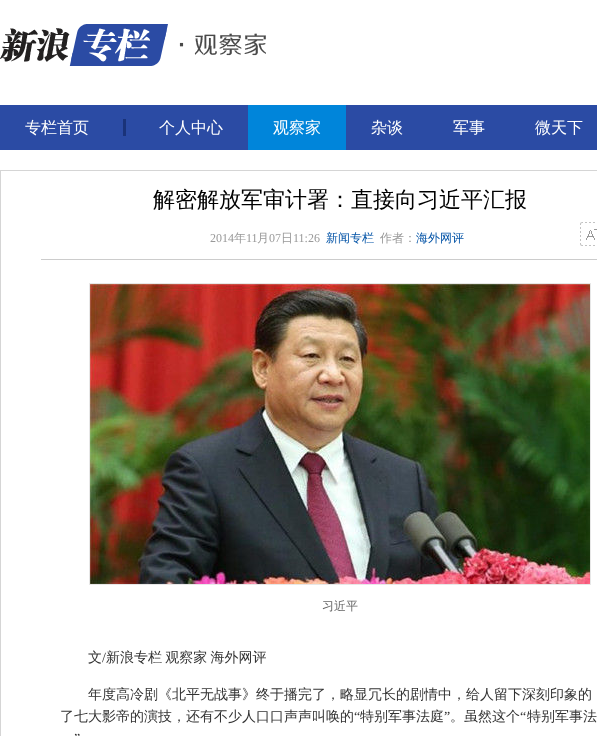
<svg xmlns="http://www.w3.org/2000/svg" width="597" height="736">
	<rect width="100%" height="100%" fill="#FFFFFF" />
	<image x="0" y="24" width="168" height="42" href="assets/img1.png" />
	<image x="179" y="33" width="87" height="23" href="assets/img2.png" />
	<rect x="0" y="105" width="597" height="45" fill="#2B4BA4" />
	<text x="25" y="133" font-family="WenQuanYi Zen Hei" font-size="16" font-weight="500" fill="#FFFFFF">专栏首页</text>
	<rect x="123" y="119" width="3" height="17" fill="#1A3379" />
	<text x="159" y="133" font-family="WenQuanYi Zen Hei" font-size="16" font-weight="500" fill="#FFFFFF">个人中心</text>
	<rect x="248" y="105" width="98" height="45" fill="#0085DA" />
	<g font-family="WenQuanYi Zen Hei" font-size="16" font-weight="500" fill="#FFFFFF">
		<text x="273" y="133">观察家</text>
		<text x="371" y="133">杂谈</text>
		<text x="453" y="133">军事</text>
		<text x="535" y="133">微天下</text>
	</g>
	<rect x="0.5" y="170.5" width="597" height="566" fill="none" stroke="#D5D5D5" />
	<text x="153" y="207" font-family="WenQuanYi Zen Hei" font-size="22" font-weight="500" fill="#000000">解密解放军审计署：直接向习近平汇报</text>
	<rect x="41" y="259" width="556" height="1" fill="#CCCCCC" />
	<text x="210" y="242" font-family="Liberation Serif" font-size="12" fill="#999999">2014</text>
	<text x="234" y="242" font-family="WenQuanYi Zen Hei" font-size="12" font-weight="500" fill="#999999">年</text>
	<text x="246" y="242" font-family="Liberation Serif" font-size="12" fill="#999999">11</text>
	<text x="257" y="242" font-family="WenQuanYi Zen Hei" font-size="12" font-weight="500" fill="#999999">月</text>
	<text x="269" y="242" font-family="Liberation Serif" font-size="12" fill="#999999">07</text>
	<text x="281" y="242" font-family="WenQuanYi Zen Hei" font-size="12" font-weight="500" fill="#999999">日</text>
	<text x="293" y="242" font-family="Liberation Serif" font-size="12" fill="#999999">11:26</text>
	<text x="326" y="242" font-family="WenQuanYi Zen Hei" font-size="12" font-weight="500" fill="#0454A7">新闻专栏</text>
	<text x="380" y="242" font-family="WenQuanYi Zen Hei" font-size="12" font-weight="500" fill="#999999">作者：</text>
	<text x="416" y="242" font-family="WenQuanYi Zen Hei" font-size="12" font-weight="500" fill="#0454A7">海外网评</text>
	<image x="580" y="222" width="17" height="24" href="assets/img3.png" />
	<rect x="89.5" y="283.5" width="501" height="301" fill="none" stroke="#E7E7E7" />
	<image x="90" y="284" width="500" height="300" href="assets/img4.png" />
	<text x="322" y="610" font-family="WenQuanYi Zen Hei" font-size="12" font-weight="500" fill="#666666">习近平</text>
	<text x="88" y="662" font-family="WenQuanYi Zen Hei" font-size="14" font-weight="500" fill="#333333">文</text>
	<text x="102" y="662" font-family="Liberation Serif" font-size="14" fill="#333333">/</text>
	<g font-family="WenQuanYi Zen Hei" font-size="14" font-weight="500" fill="#333333">
		<text x="106" y="662" word-spacing="-1">新浪专栏 观察家 海外网评</text>
		<text x="88" y="699">年度高冷剧《北平无战事》终于播完了，略显冗长的剧情中，给人留下深刻印象的</text>
		<text x="60" y="721">了七大影帝的演技，还有不少人口口声声叫唤的</text>
	</g>
	<text x="354" y="721" font-family="Liberation Serif" font-size="14" fill="#333333">“</text>
	<text x="360" y="721" font-family="WenQuanYi Zen Hei" font-size="14" font-weight="500" fill="#333333">特别军事法庭</text>
	<text x="444" y="721" font-family="Liberation Serif" font-size="14" fill="#333333">”</text>
	<text x="450" y="721" font-family="WenQuanYi Zen Hei" font-size="14" font-weight="500" fill="#333333">。虽然这个</text>
	<text x="520" y="721" font-family="Liberation Serif" font-size="14" fill="#333333">“</text>
	<text x="527" y="721" font-family="WenQuanYi Zen Hei" font-size="14" font-weight="500" fill="#333333">特别军事法</text>
	<text x="74" y="743" font-family="Liberation Serif" font-size="14" fill="#333333">”</text>
</svg>
